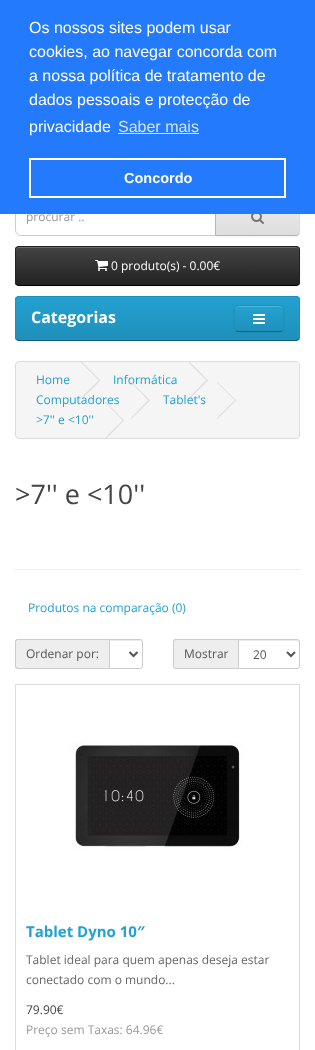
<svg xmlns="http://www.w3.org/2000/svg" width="315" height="1050">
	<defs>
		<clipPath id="clip1"><path d="M215 196H296C298 196 300 198 300 200V232C300 234 298 236 296 236H215Z" /></clipPath>
		<linearGradient id="g1" gradientUnits="userSpaceOnUse" x1="258" y1="197" x2="258" y2="235"><stop offset="0" stop-color="#EEEEEE" /><stop offset="1" stop-color="#DDDDDD" /></linearGradient>
		<clipPath id="clip2"><rect x="15" y="246" width="285" height="40" rx="4" /></clipPath>
		<linearGradient id="g2" gradientUnits="userSpaceOnUse" x1="158" y1="247" x2="158" y2="285"><stop offset="0" stop-color="#444444" /><stop offset="1" stop-color="#222222" /></linearGradient>
		<clipPath id="clip3"><rect x="15" y="296" width="285" height="45" rx="4" /></clipPath>
		<linearGradient id="g3" gradientUnits="userSpaceOnUse" x1="158" y1="297" x2="158" y2="340"><stop offset="0" stop-color="#23A1D1" /><stop offset="1" stop-color="#1F90BB" /></linearGradient>
		<clipPath id="clip4"><rect x="234" y="305" width="50" height="27" rx="4" /></clipPath>
		<linearGradient id="g4" gradientUnits="userSpaceOnUse" x1="259" y1="306" x2="259" y2="331"><stop offset="0" stop-color="#23A1D1" /><stop offset="1" stop-color="#1F90BB" /></linearGradient>
	</defs>
	<rect width="100%" height="100%" fill="#FFFFFF" />
	<path d="M21 196.5H215.5V235.5H21C18 235.5 15.5 233 15.5 230V202C15.5 199 18 196.5 21 196.5Z" fill="none" stroke="#CCCCCC" />
	<rect x="215" y="197" width="85" height="40" rx="4" fill="#000000" fill-opacity="0.05" filter="blur(1px)" />
	<path d="M215 196H296C298 196 300 198 300 200V232C300 234 298 236 296 236H215Z" fill="#E7E7E7" />
	<g clip-path="url(#clip1)">
		<rect x="216" y="214" width="84" height="21" fill="url(#g1)" />
	</g>
	<path d="M300 232V200C300 199 299.5 198 299 197L298 198C299 198 299 199 299 200V232C299 233 299 234 298 234L299 235C299.5 234 300 233 300 232Z" fill="#DDDDDD" />
	<path d="M296 236L299 235L298 234L297 235H216L215 236Z" fill="#B3B3B3" />
	<path d="M215 196V236L216 235V197Z" fill="#B7B7B7" />
	<rect x="0" y="0" width="315" height="214" fill="#237AFC" />
	<g font-family="Liberation Sans" font-size="16" fill="#FFFFFF">
		<text x="29" y="33">Os nossos sites podem usar</text>
		<text x="29" y="57">cookies, ao navegar concorda com</text>
		<text x="29" y="81">a nossa política de tratamento de</text>
		<text x="29" y="105">dados pessoais e protecção de</text>
		<text x="29" y="132">privacidade</text>
	</g>
	<text x="118" y="132" font-family="Liberation Sans" font-size="16" fill="#D3E4FE">Saber mais</text>
	<rect x="118" y="133" width="81" height="1" fill="#D3E4FE" />
	<rect x="30" y="159" width="255" height="38" fill="none" stroke="#FFFFFF" stroke-width="2" />
	<text x="124" y="183" font-family="Liberation Sans" font-size="14.5" font-weight="700" fill="#FFFFFF">Concordo</text>
	<text x="26" y="221" font-family="Open Sans" font-size="12" fill="#999999">procurar ..</text>
	<image x="251" y="214" width="13" height="10" href="assets/img1.png" />
	<rect x="15" y="247" width="285" height="40" rx="4" fill="#000000" fill-opacity="0.05" filter="blur(1px)" />
	<rect x="15" y="246" width="285" height="40" rx="4" fill="#363636" />
	<g clip-path="url(#clip2)">
		<rect x="15" y="247" width="285" height="38" fill="url(#g2)" />
	</g>
	<path d="M19 248H296C298 248 299 249 299 251V250C299 248 298 247 296 247H19C17 247 16 248 16 250V251C16 249 17 248 19 248Z" fill="#696969" />
	<path d="M298.5 284.5L296 285.5H19L16.5 284.5" fill="none" stroke="#000000" />
	<path d="M16.5 284.5C16 284 15.5 283 15.5 282V250C15.5 249 16 248 16.5 247.5C17 247 18 246.5 19 246.5H296C297 246.5 298 247 298.5 247.5C299 248 299.5 249 299.5 250V282C299.5 283 299 284 298.5 284.5" fill="none" stroke="#222222" />
	<image x="95" y="260" width="13" height="11" href="assets/img2.png" />
	<text x="111" y="270" font-family="Open Sans" font-size="12" fill="#FFFFFF">0 produto(s) - 0.00€</text>
	<rect x="15" y="296" width="285" height="45" rx="4" fill="#229AC8" />
	<g clip-path="url(#clip3)">
		<rect x="15" y="297" width="285" height="43" fill="url(#g3)" />
	</g>
	<path d="M298.5 339.5L296 340.5H19L16.5 339.5" fill="none" stroke="#145E7A" />
	<path d="M16.5 339.5C16 339 15.5 338 15.5 337V300C15.5 299 16 298 16.5 297.5C17 297 18 296.5 19 296.5H296C297 296.5 298 297 298.5 297.5C299 298 299.5 299 299.5 300V337C299.5 338 299 339 298.5 339.5" fill="none" stroke="#1F90BB" />
	<text x="31" y="323" font-family="Open Sans" font-size="16" font-weight="700" fill="#FFFFFF">Categorias</text>
	<rect x="234" y="306" width="50" height="27" rx="4" fill="#000000" fill-opacity="0.05" filter="blur(1px)" />
	<rect x="234" y="305" width="50" height="27" rx="4" fill="#229AC8" />
	<g clip-path="url(#clip4)">
		<rect x="234" y="306" width="50" height="25" fill="url(#g4)" />
	</g>
	<path d="M238 307H280C282 307 283 308 283 310C283 304 277 306 273 306H245C241 306 235 304 235 310C235 308 236 307 238 307Z" fill="#4FB4DA" />
	<path d="M282.5 330.5C282 331 281 331.5 280 331.5H238C237 331.5 236 331 235.5 330.5" fill="none" stroke="#145E7A" />
	<path d="M235.5 330.5C233.5 328.5 234.5 321 234.5 318.5C234.5 305.5 232.5 305.5 245 305.5H273C285.5 305.5 283.5 305.5 283.5 318.5C283.5 321 284.5 328.5 282.5 330.5" fill="none" stroke="#1F90BB" />
	<image x="253" y="314" width="12" height="10" href="assets/img3.png" />
	<rect x="15.5" y="361.5" width="284" height="77" rx="3.5" fill="#F5F5F5" stroke="#DDDDDD" />
	<text x="36" y="384" font-family="Open Sans" font-size="12" fill="#23A1D1">Home</text>
	<path d="M81 362.5L82 362L100.5 380.5L99.5 381Z" fill="#DDDDDD" />
	<path d="M81 398L99.5 379.5L100.5 380.5L82 399Z" fill="#DDDDDD" />
	<text x="113" y="384" font-family="Open Sans" font-size="12" fill="#23A1D1">Informática</text>
	<path d="M188.5 362.5L189.5 362L208 380.5L207 381Z" fill="#DDDDDD" />
	<path d="M188.5 398L207 379.5L208 380.5L189.5 399Z" fill="#DDDDDD" />
	<text x="36" y="404" font-family="Open Sans" font-size="12" fill="#23A1D1">Computadores</text>
	<path d="M131 382.5L131.5 382L150 400.5L149 401Z" fill="#DDDDDD" />
	<path d="M131 418L149 399.5L150 400.5L131.5 419Z" fill="#DDDDDD" />
	<text x="163" y="404" font-family="Open Sans" font-size="12" fill="#23A1D1">Tablet's</text>
	<path d="M217 382.5L217.5 382L236 400.5L235.5 401Z" fill="#DDDDDD" />
	<path d="M217 418L235.5 399.5L236 400.5L217.5 419Z" fill="#DDDDDD" />
	<text x="36" y="424" font-family="Open Sans" font-size="12" fill="#23A1D1">&gt;7'' e &lt;10''</text>
	<path d="M105 402.5L106 402L124 420.5L123.5 421Z" fill="#DDDDDD" />
	<path d="M105 438L123.5 419.5L124 420.5L106 439Z" fill="#DDDDDD" />
	<text x="15" y="504" font-family="Open Sans" font-size="27" fill="#444444">&gt;7'' e &lt;10''</text>
	<rect x="15" y="569" width="285" height="1" fill="#EEEEEE" />
	<text x="28" y="612" font-family="Open Sans" font-size="12" fill="#23A1D1">Produtos na comparação (0)</text>
	<path d="M18 639H109V669H18C16.5 669 15 667.5 15 666V642C15 640.5 16.5 639 18 639Z" fill="#EEEEEE" />
	<path d="M18 639H109V669H18C16 669 15 668 15 666V642C15 640 16 639 18 639ZM18 640H109V668H18C17 668 16 667 16 666V642C16 641 17 640 18 640Z" fill="#CCCCCC" fill-rule="evenodd" />
	<text x="26" y="658" font-family="Open Sans" font-size="12" fill="#555555">Ordenar por:</text>
	<path d="M110 641H140C141 641 142 642 142 643V642C142 641 141 640 140 640H110Z" fill="#ECECEC" />
	<path d="M109.5 639.5H140C141.5 639.5 142.5 640.5 142.5 642V666C142.5 667.5 141.5 668.5 140 668.5H109.5Z" fill="none" stroke="#CCCCCC" />
	<path d="M129.5 652L133.5 656L137.5 652" fill="none" stroke="#555555" stroke-width="2" />
	<path d="M176 639H238V669H176C174.5 669 173 667.5 173 666V642C173 640.5 174.5 639 176 639Z" fill="#EEEEEE" />
	<path d="M176 639H238V669H176C174 669 173 668 173 666V642C173 640 174 639 176 639ZM176 640H238V668H176C175 668 174 667 174 666V642C174 641 175 640 176 640Z" fill="#CCCCCC" fill-rule="evenodd" />
	<text x="184" y="658" font-family="Open Sans" font-size="12" fill="#555555">Mostrar</text>
	<path d="M239 641H297C298 641 299 642 299 643V642C299 641 298 640 297 640H239Z" fill="#ECECEC" />
	<path d="M238.5 639.5H297C298.5 639.5 299.5 640.5 299.5 642V666C299.5 667.5 298.5 668.5 297 668.5H238.5Z" fill="none" stroke="#CCCCCC" />
	<path d="M287 652L291 656L295 652" fill="none" stroke="#555555" stroke-width="2" />
	<text x="253" y="659" font-family="Open Sans" font-size="12" fill="#555555">20</text>
	<rect x="15.5" y="684.5" width="284" height="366" fill="none" stroke="#DDDDDD" />
	<image x="69" y="741" width="175" height="109" href="assets/img4.png" />
	<text x="26" y="937" font-family="Open Sans" font-size="15" font-weight="700" fill="#23A1D1">Tablet Dyno 10″</text>
	<g font-family="Open Sans" font-size="12" fill="#666666">
		<text x="26" y="964">Tablet ideal para quem apenas deseja estar</text>
		<text x="26" y="984">conectado com o mundo...</text>
	</g>
	<text x="26" y="1014" font-family="Open Sans" font-size="12" fill="#444444">79.90€</text>
	<text x="26" y="1034" font-family="Open Sans" font-size="12" fill="#999999">Preço sem Taxas: 64.96€</text>
</svg>
